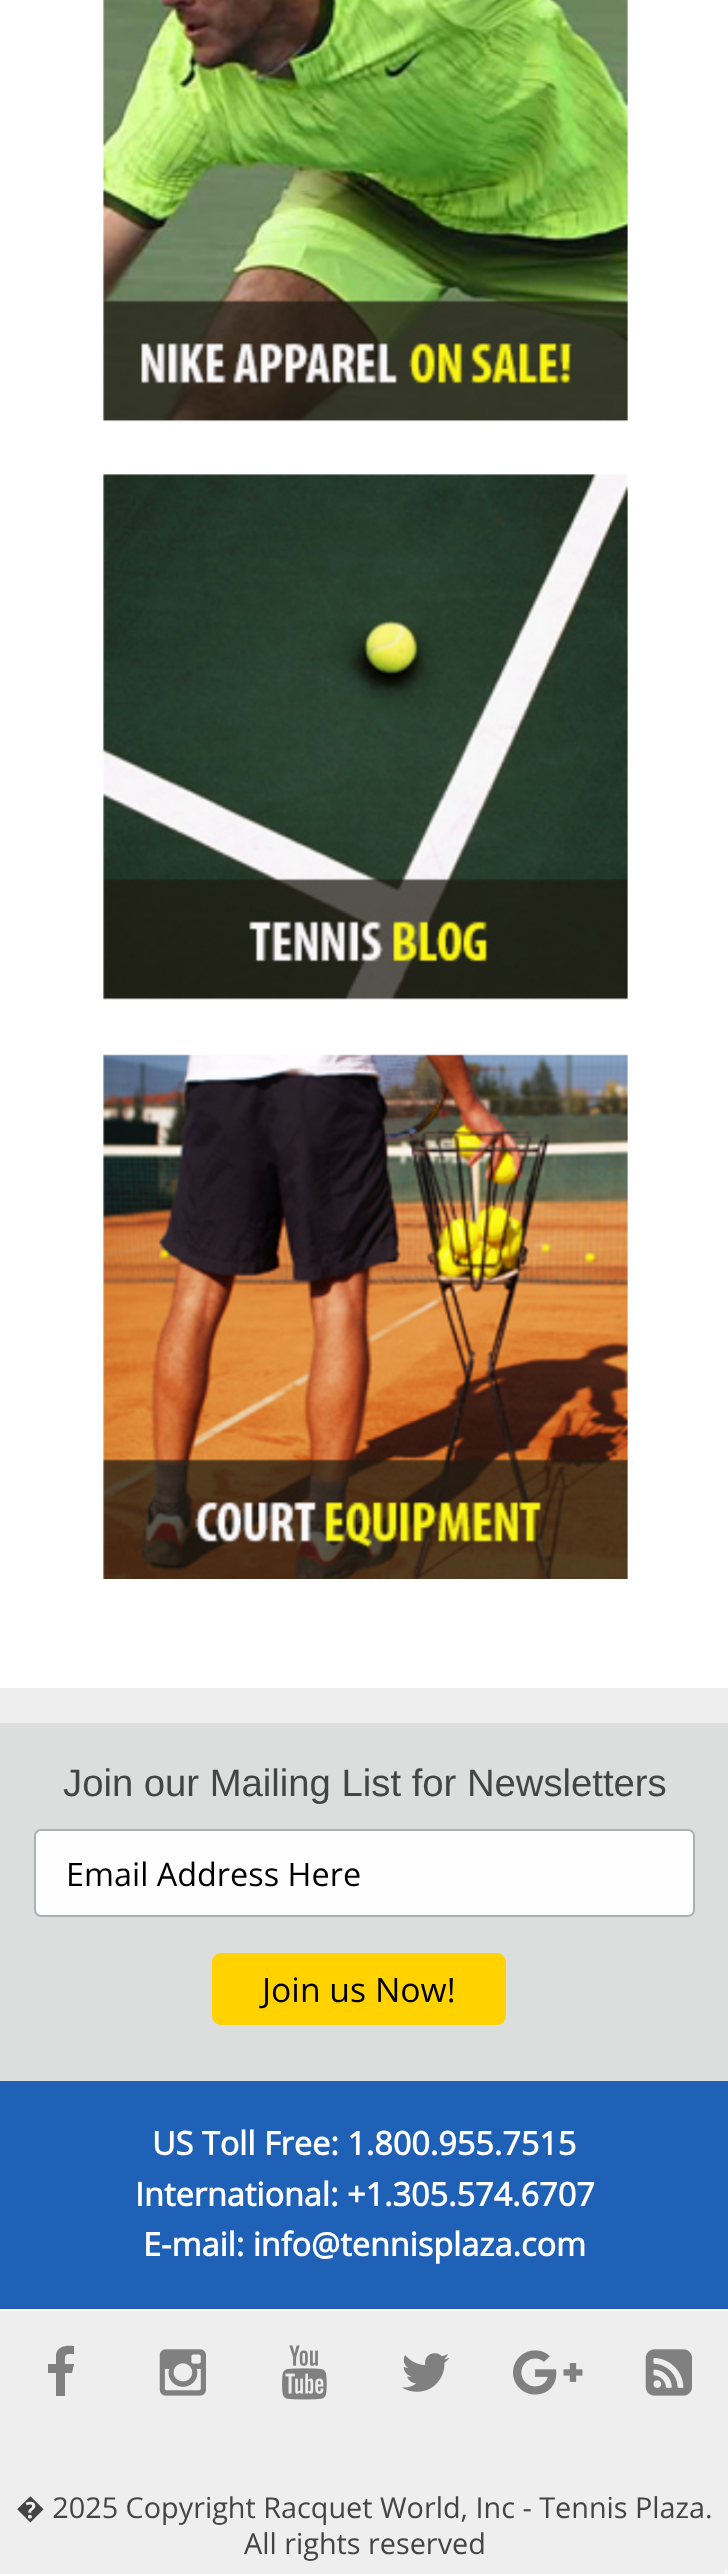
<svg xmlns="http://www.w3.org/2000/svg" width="728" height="2574">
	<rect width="100%" height="100%" fill="#EEEEEE" />
	<rect x="0" y="0" width="728" height="1688" fill="#FFFFFF" />
	<image x="103" y="0" width="525" height="422" href="assets/img1.png" />
	<image x="103" y="474" width="525" height="526" href="assets/img2.png" />
	<image x="103" y="1054" width="525" height="525" href="assets/img3.png" />
	<rect x="0" y="1723" width="728" height="358" fill="#DCDDDD" />
	<text x="63" y="1796" font-family="Liberation Sans" font-size="38.25" fill="#444444">Join our Mailing List for Newsletters</text>
	<rect x="35" y="1830" width="659" height="86" rx="6" fill="#FEFEFE" stroke="#ABB0B2" stroke-width="2" />
	<text x="66" y="1886" font-family="Open Sans" font-size="32.4" fill="#000000">Email Address Here</text>
	<rect x="212" y="1953" width="294" height="72" rx="9" fill="#FFD200" />
	<text x="262" y="2002" font-family="Open Sans" font-size="33.75" fill="#000000">Join us Now!</text>
	<rect x="0" y="2081" width="728" height="228" fill="#1F61B6" />
	<rect x="0" y="2309" width="728" height="2" fill="#FFFFFF" />
	<g font-family="Open Sans" font-size="32.4" font-weight="700" fill="#FFFFFF">
		<text x="152" y="2155">US Toll Free: 1.800.955.7515</text>
		<text x="135" y="2206">International: +1.305.574.6707</text>
		<text x="143" y="2256">E-mail: info@tennisplaza.com</text>
	</g>
	<path d="M74 2346V2354C64 2354 65 2354 65 2364H74L72 2373H65V2396H56V2373H48V2364H56V2355C57 2346 66 2345 74 2346Z" fill="#808080" />
	<image x="159" y="2349" width="47" height="47" href="assets/img4.png" />
	<image x="282" y="2345" width="45" height="55" href="assets/img5.png" />
	<image x="402" y="2353" width="47" height="39" href="assets/img6.png" />
	<image x="513" y="2350" width="70" height="45" href="assets/img7.png" />
	<image x="645" y="2349" width="47" height="47" href="assets/img8.png" />
	<g font-family="Open Sans" font-size="28.8" fill="#444444">
		<text x="16" y="2518">� 2025 Copyright Racquet World, Inc - Tennis Plaza.</text>
		<text x="244" y="2554">All rights reserved</text>
	</g>
	<rect x="725" y="2570" width="3" height="4" fill="#F5F5F5" />
</svg>
